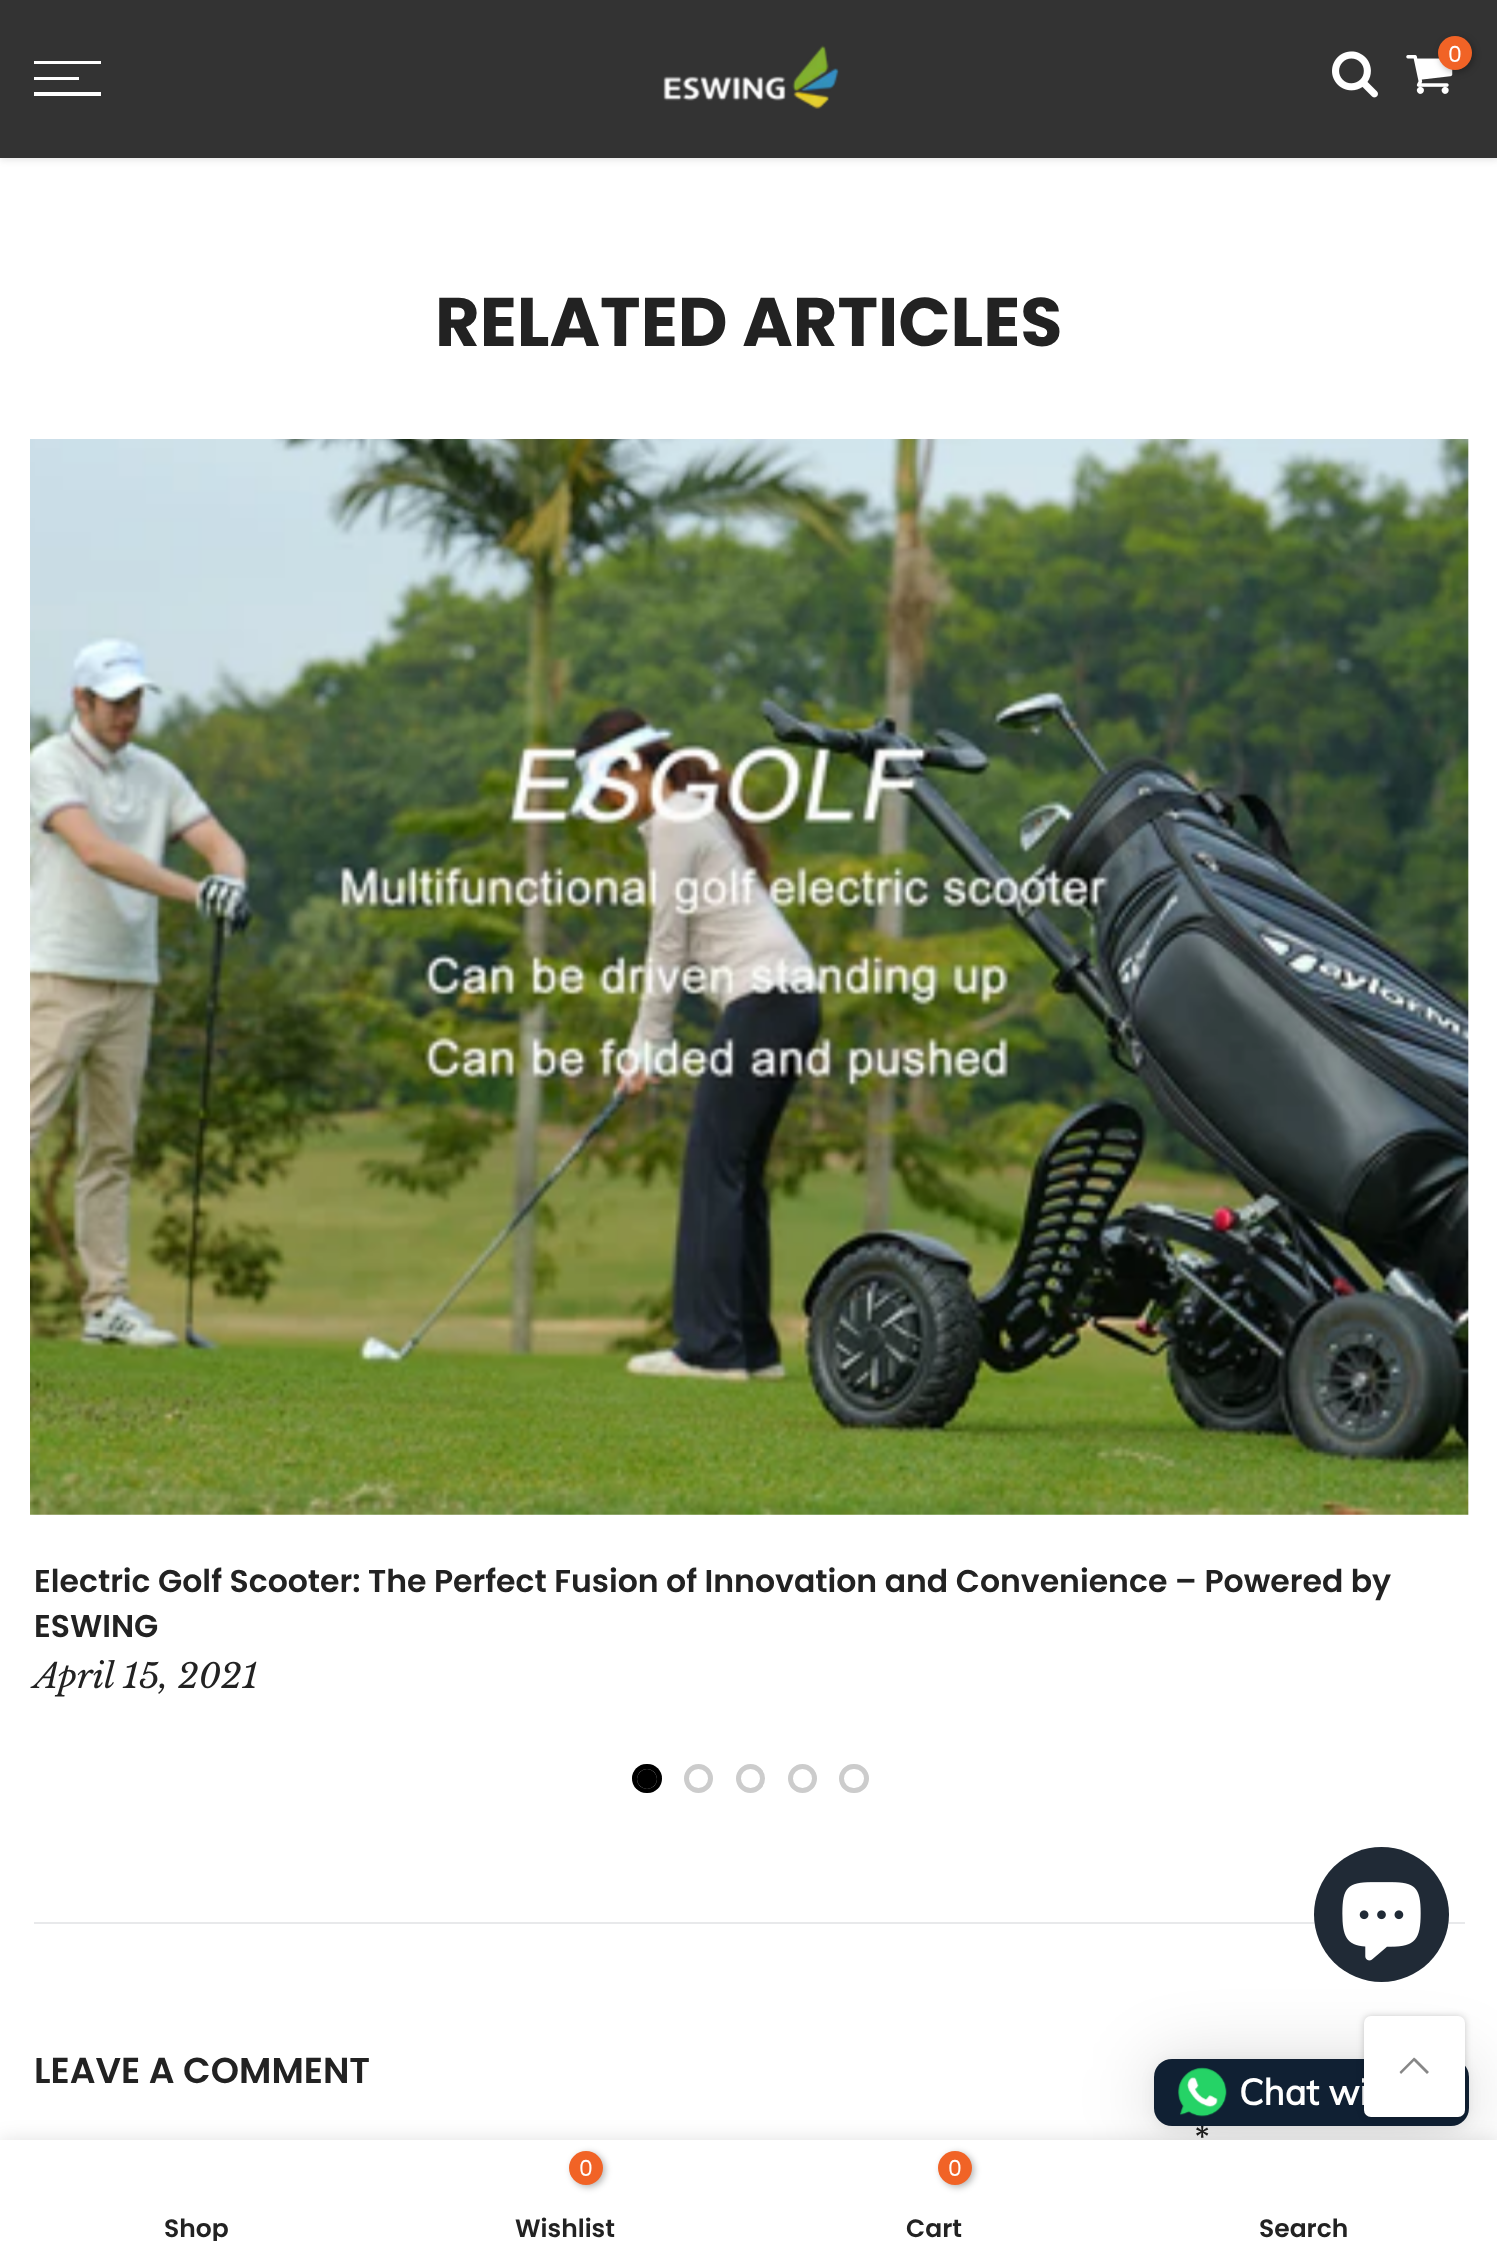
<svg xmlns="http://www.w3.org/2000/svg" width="1497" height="2262">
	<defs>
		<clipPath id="clip1"><rect x="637" y="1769" width="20" height="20" rx="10" /></clipPath>
		<clipPath id="clip2"><rect x="34" y="2216" width="324" height="25" /></clipPath>
	</defs>
	<rect width="100%" height="100%" fill="#FFFFFF" />
	<rect x="0" y="2" width="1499" height="158" fill="#000000" fill-opacity="0.1" filter="blur(3.5px)" />
	<rect x="0" y="0" width="1497" height="158" fill="#333333" />
	<image x="663" y="45" width="176" height="64" href="assets/img1.png" />
	<image x="1332" y="51" width="46" height="47" href="assets/img2.png" />
	<image x="1406" y="55" width="47" height="39" href="assets/img3.png" />
	<rect x="1440" y="38" width="34" height="34" rx="17" fill="#000000" fill-opacity="0.3" filter="blur(3.5px)" />
	<circle cx="1455" cy="53" r="17" fill="#F16326" />
	<text x="1448" y="62" font-family="Poppins" font-size="22" fill="#FFFFFF">0</text>
	<rect x="34" y="61" width="67" height="3" fill="#FFFFFF" />
	<rect x="34" y="77" width="45" height="3" fill="#FFFFFF" />
	<rect x="34" y="92" width="67" height="4" fill="#FFFFFF" />
	<text x="435" y="346" font-family="Poppins" font-size="68.6" font-weight="700" fill="#222222">RELATED ARTICLES</text>
	<image x="30" y="439" width="1439" height="1076" href="assets/img4.png" />
	<g font-family="Poppins" font-size="31.5" font-weight="600" fill="#222222">
		<text x="34" y="1592">Electric Golf Scooter: The Perfect Fusion of Innovation and Convenience – Powered by</text>
		<text x="34" y="1637">ESWING</text>
	</g>
	<text x="34" y="1688" font-family="Libre Baskerville" font-size="33.75" font-style="italic" fill="#222222">April 15, 2021</text>
	<rect x="632" y="1764" width="30" height="29" rx="14.5" fill="#000000" />
	<rect x="634.5" y="1766.5" width="25" height="24" rx="12" fill="none" stroke="#000000" stroke-opacity="0.2" stroke-width="5" />
	<g clip-path="url(#clip1)">
		<rect x="637" y="1769" width="20" height="20" fill="#FFFFFF" filter="blur(1px)" />
	</g>
	<circle cx="647" cy="1779" r="10" fill="#000000" />
	<circle cx="698.5" cy="1778.5" r="12" fill="none" stroke="#CCCCCC" stroke-width="5" />
	<circle cx="750.5" cy="1778.5" r="12" fill="none" stroke="#CCCCCC" stroke-width="5" />
	<circle cx="802.5" cy="1778.5" r="12" fill="none" stroke="#CCCCCC" stroke-width="5" />
	<rect x="841.5" y="1766.5" width="25" height="24" rx="12" fill="none" stroke="#CCCCCC" stroke-width="5" />
	<rect x="34" y="1922" width="1431" height="2" fill="#E8E9EB" />
	<text x="34" y="2083" font-family="Poppins" font-size="36" font-weight="600" fill="#222222">LEAVE A COMMENT</text>
	<text x="1194" y="2150" font-family="Poppins" font-size="33.75" fill="#222222">*</text>
	<rect x="1154" y="2063" width="315" height="68" rx="18" fill="#000000" fill-opacity="0.16" filter="blur(36px)" />
	<circle cx="1381.5" cy="1914.5" r="67.5" fill="#202A36" />
	<image x="1342" y="1882" width="79" height="79" href="assets/img5.png" />
	<rect x="1154" y="2061" width="315" height="68" rx="18" fill="#000000" fill-opacity="0.06" filter="blur(7px)" />
	<rect x="1154" y="2059" width="315" height="67" rx="18" fill="#102033" />
	<image x="1178" y="2067" width="49" height="50" href="assets/img6.png" />
	<text x="1239" y="2105" font-family="Muli" font-size="36" font-weight="700" fill="#FFFFFF">Chat wi</text>
	<rect x="1364" y="2016" width="101" height="101" rx="7" fill="#000000" fill-opacity="0.2" filter="blur(3.5px)" />
	<rect x="1364" y="2016" width="101" height="101" rx="7" fill="#FFFFFF" />
	<path d="M1416 2059L1414 2057.5L1399.5 2072L1401 2074L1414 2061L1427 2074L1429 2072Z" fill="#878787" />
	<rect x="0" y="2140" width="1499" height="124" fill="#000000" fill-opacity="0.12" filter="blur(10px)" />
	<rect x="0" y="2140" width="1497" height="122" fill="#FFFFFF" />
	<g clip-path="url(#clip2)">
		<text x="164" y="2237" font-family="Poppins" font-size="25" font-weight="600" fill="#222222">Shop</text>
	</g>
	<rect x="572" y="2153" width="33" height="34" rx="16.5" fill="#000000" fill-opacity="0.3" filter="blur(3.5px)" />
	<circle cx="586" cy="2168" r="17" fill="#F16326" />
	<text x="579" y="2176" font-family="Poppins" font-size="22" fill="#FFFFFF">0</text>
	<text x="515" y="2237" font-family="Poppins" font-size="25" font-weight="600" fill="#222222">Wishlist</text>
	<rect x="941" y="2153" width="33" height="34" rx="16.5" fill="#000000" fill-opacity="0.3" filter="blur(3.5px)" />
	<circle cx="955" cy="2168" r="17" fill="#F16326" />
	<text x="948" y="2176" font-family="Poppins" font-size="22" fill="#FFFFFF">0</text>
	<g font-family="Poppins" font-size="25" font-weight="600" fill="#222222">
		<text x="906" y="2237">Cart</text>
		<text x="1259" y="2237">Search</text>
	</g>
</svg>
